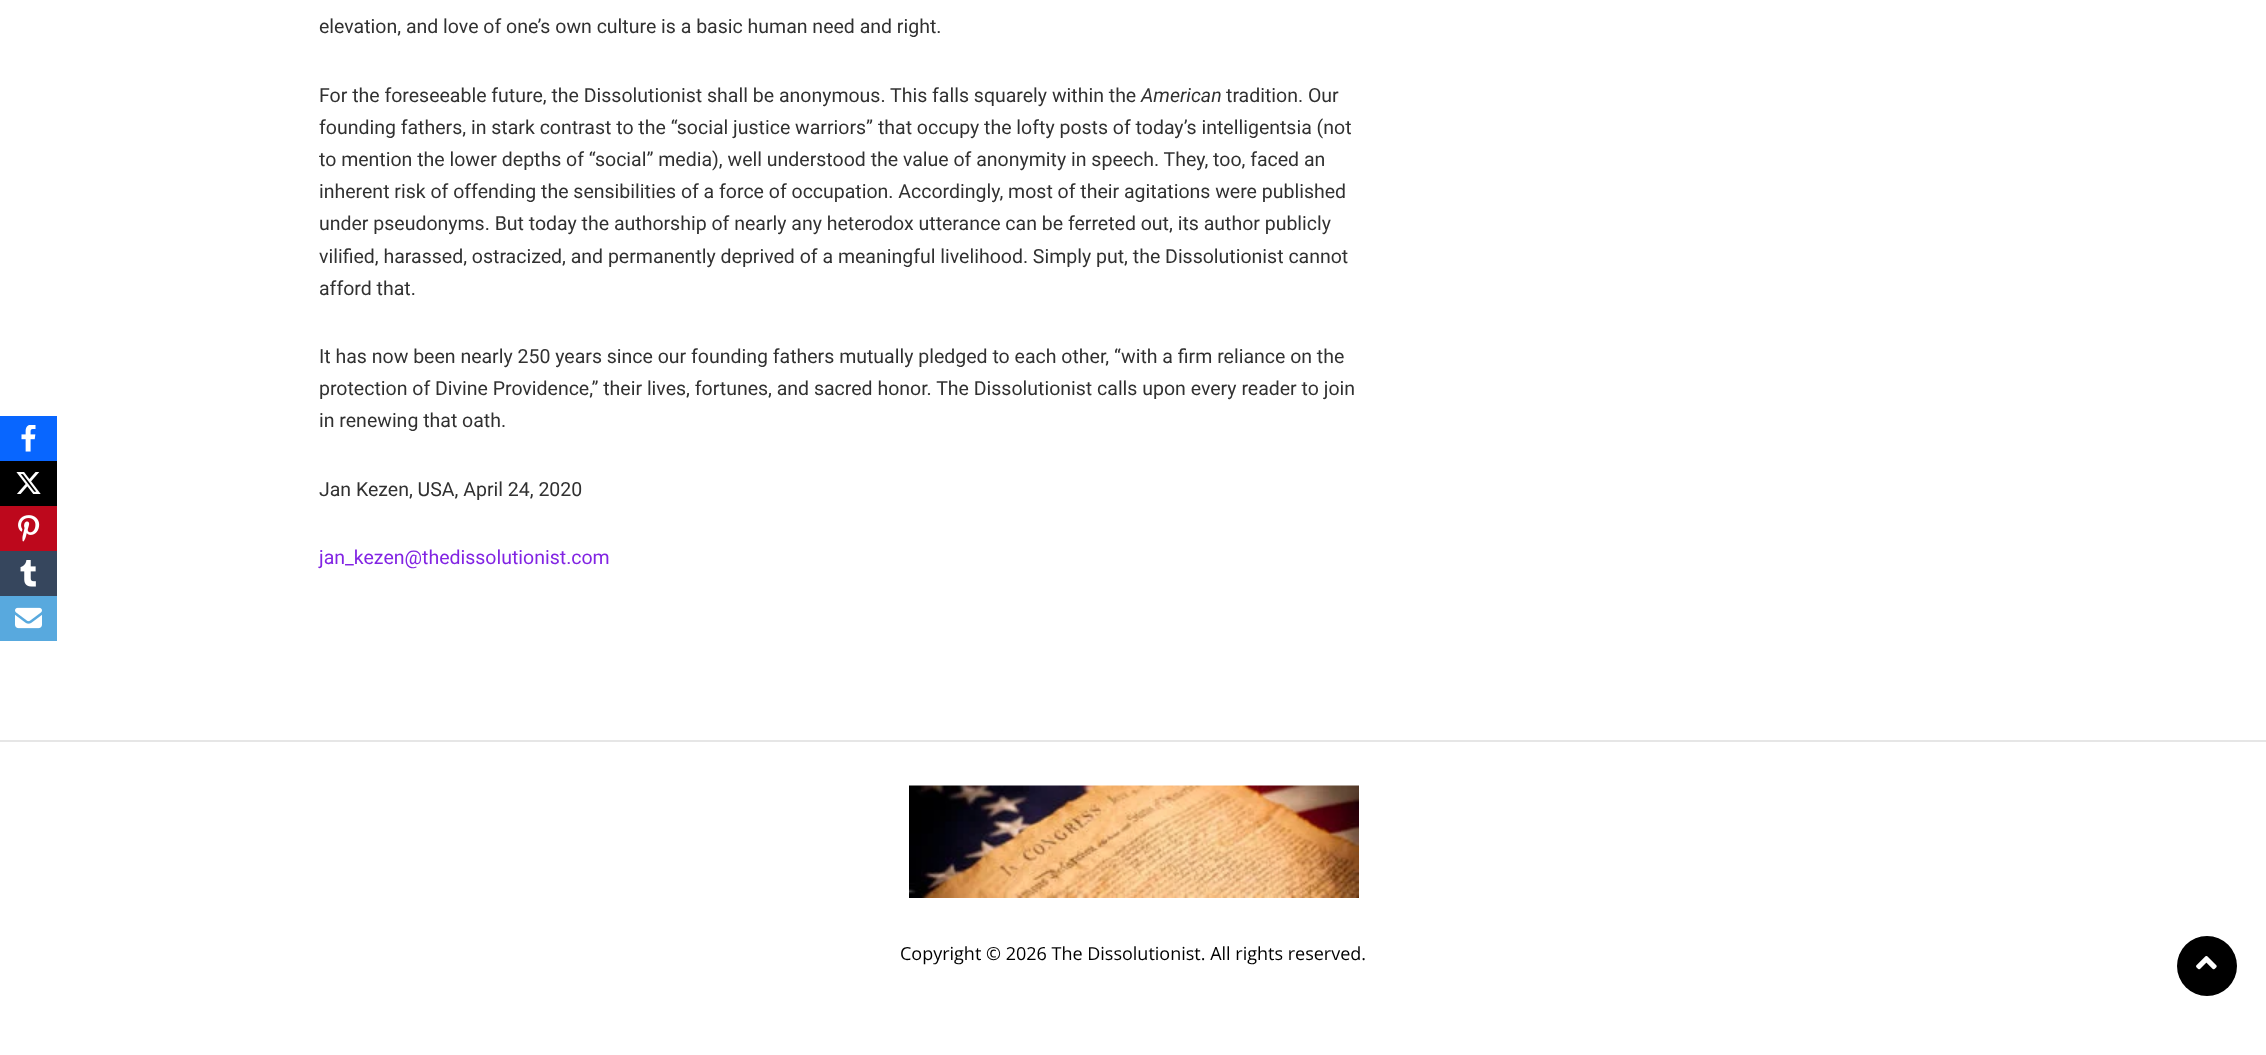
<svg xmlns="http://www.w3.org/2000/svg" width="2266" height="1055">
	<rect width="100%" height="100%" fill="#FFFFFF" />
	<rect x="0" y="416" width="57" height="45" fill="#0866FF" />
	<image x="21" y="425" width="15" height="27" href="assets/img1.png" />
	<rect x="0" y="461" width="57" height="45" fill="#000000" />
	<image x="16" y="472" width="25" height="22" href="assets/img2.png" />
	<rect x="0" y="506" width="57" height="45" fill="#BD081C" />
	<image x="18" y="515" width="22" height="27" href="assets/img3.png" />
	<rect x="0" y="551" width="57" height="45" fill="#36465D" />
	<image x="20" y="560" width="16" height="27" href="assets/img4.png" />
	<rect x="0" y="596" width="57" height="45" fill="#58A9DE" />
	<image x="15" y="607" width="27" height="22" href="assets/img5.png" />
	<g font-family="Roboto" font-size="19.5" fill="#313131">
		<text x="319" y="33">elevation, and love of one’s own culture is a basic human need and right.</text>
		<text x="319" y="102">For the foreseeable future, the Dissolutionist shall be anonymous. This falls squarely within the</text>
	</g>
	<text x="1141" y="102" font-family="Roboto" font-size="19.5" font-style="italic" fill="#313131">American</text>
	<g font-family="Roboto" font-size="19.5" fill="#313131">
		<text x="1226" y="102">tradition. Our</text>
		<text x="319" y="134">founding fathers, in stark contrast to the “social justice warriors” that occupy the lofty posts of today’s intelligentsia (not</text>
		<text x="319" y="166">to mention the lower depths of “social” media), well understood the value of anonymity in speech. They, too, faced an</text>
		<text x="319" y="198">inherent risk of offending the sensibilities of a force of occupation. Accordingly, most of their agitations were published</text>
		<text x="319" y="230">under pseudonyms. But today the authorship of nearly any heterodox utterance can be ferreted out, its author publicly</text>
		<text x="319" y="263">vilified, harassed, ostracized, and permanently deprived of a meaningful livelihood. Simply put, the Dissolutionist cannot</text>
		<text x="319" y="295">afford that.</text>
		<text x="319" y="363">It has now been nearly 250 years since our founding fathers mutually pledged to each other, “with a firm reliance on the</text>
		<text x="319" y="395">protection of Divine Providence,” their lives, fortunes, and sacred honor. The Dissolutionist calls upon every reader to join</text>
		<text x="319" y="427">in renewing that oath.</text>
		<text x="319" y="496">Jan Kezen, USA, April 24, 2020</text>
	</g>
	<text x="319" y="564" font-family="Roboto" font-size="19.5" fill="#8224E3">jan_kezen@thedissolutionist.com</text>
	<rect x="0" y="740" width="2266" height="2" fill="#E6E6E6" />
	<image x="909" y="785" width="450" height="113" href="assets/img6.png" />
	<text x="900" y="960" font-family="Open Sans" font-size="18" fill="#000000">Copyright © 2026 The Dissolutionist. All rights reserved.</text>
	<circle cx="2207" cy="966" r="30" fill="#000000" />
	<image x="2196" y="956" width="21" height="14" href="assets/img7.png" />
</svg>
